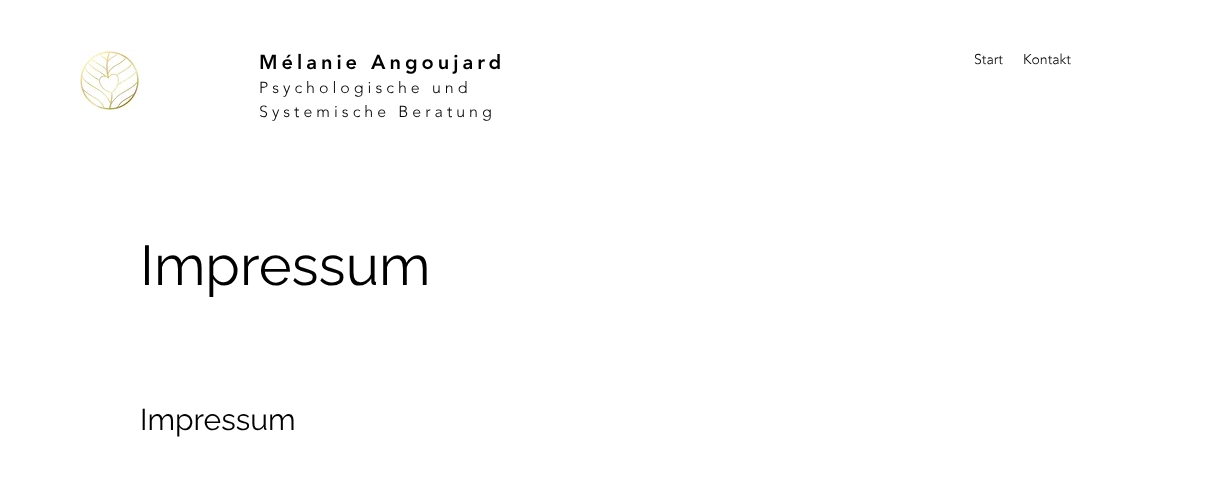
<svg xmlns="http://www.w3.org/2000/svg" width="1220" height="494">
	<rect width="100%" height="100%" fill="#FFFFFF" />
	<image x="80" y="50" width="60" height="60" href="assets/img1.png" />
	<text x="259" y="69" font-family="'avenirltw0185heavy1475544'" font-size="20" font-weight="900" letter-spacing="4" fill="#000000">Mélanie Angoujard</text>
	<g font-family="'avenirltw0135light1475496'" font-size="16" font-weight="300" letter-spacing="4" fill="#000000">
		<text x="259" y="93">Psychologische und</text>
		<text x="259" y="117">Systemische Beratung</text>
	</g>
	<g font-family="'avenirltw0135light1475496'" font-size="14" font-weight="300" fill="#000000">
		<text x="974" y="64">Start</text>
		<text x="1023" y="64">Kontakt</text>
	</g>
	<text x="140" y="285" font-family="Raleway" font-size="56" fill="#000000">Impressum</text>
	<text x="140" y="430" font-family="Raleway" font-size="30" fill="#000000">Impressum</text>
</svg>
